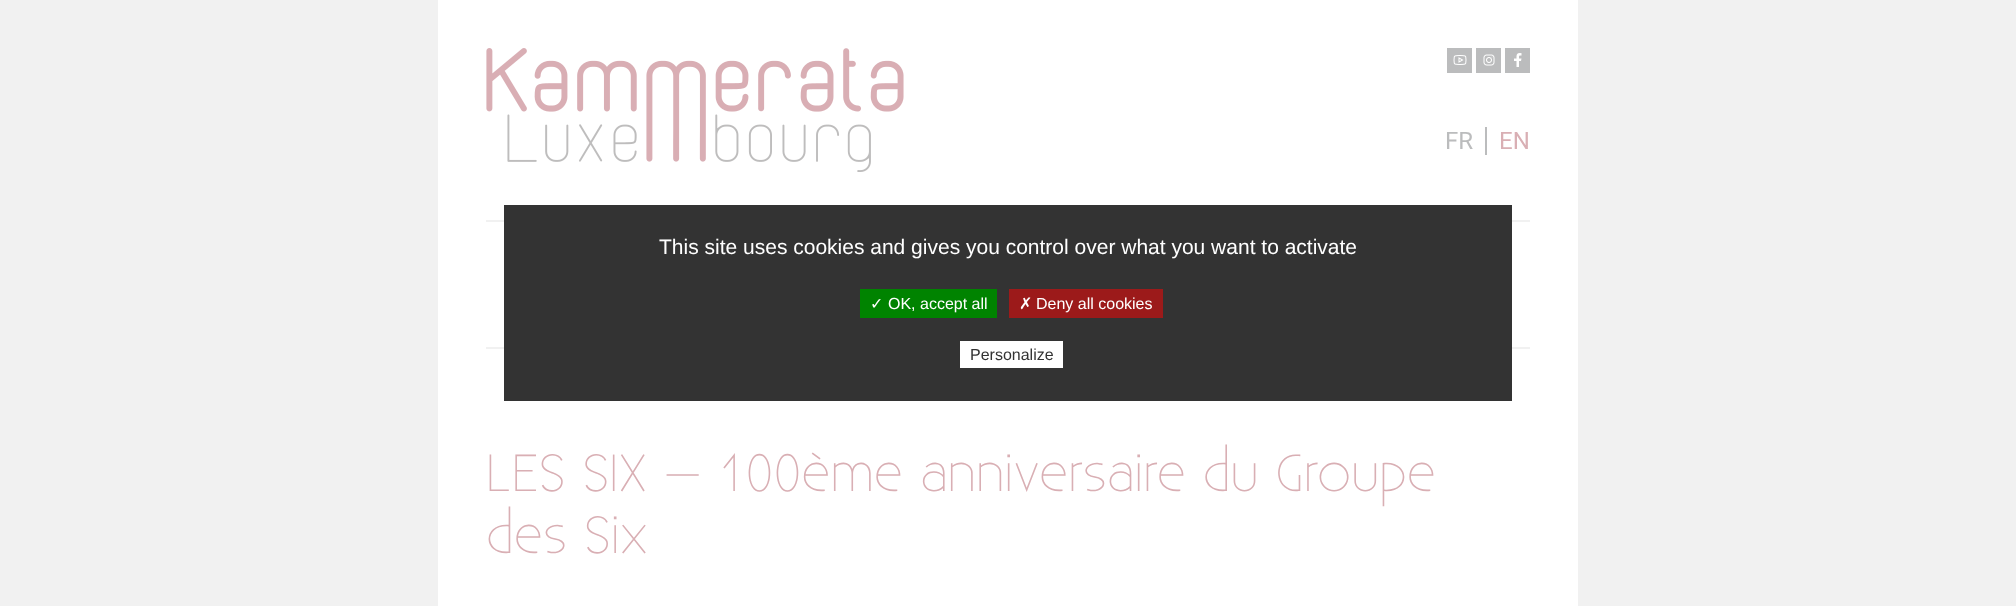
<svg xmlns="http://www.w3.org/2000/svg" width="2016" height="606">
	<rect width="100%" height="100%" fill="#F1F1F1" />
	<rect x="438" y="0" width="1140" height="606" fill="#FFFFFF" />
	<image x="486" y="48" width="418" height="124" href="assets/img1.png" />
	<rect x="1447" y="48" width="25" height="25" fill="#BBBCBD" />
	<image x="1453" y="55" width="14" height="10" href="assets/img2.png" />
	<rect x="1476" y="48" width="25" height="25" fill="#BBBCBD" />
	<image x="1483" y="54" width="12" height="12" href="assets/img3.png" />
	<rect x="1505" y="48" width="25" height="25" fill="#BBBCBD" />
	<image x="1514" y="53" width="8" height="14" href="assets/img4.png" />
	<text x="1445" y="149" font-family="Roboto" font-size="24" fill="#BBBCBD">FR</text>
	<rect x="1485" y="127" width="2" height="28" fill="#BBBCBD" />
	<text x="1499" y="149" font-family="Roboto" font-size="24" fill="#D9AFB4">EN</text>
	<rect x="486" y="220" width="1044" height="2" fill="#F1F1F1" />
	<rect x="486" y="347" width="1044" height="2" fill="#F1F1F1" />
	<g font-family="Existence" font-size="52" font-weight="300" fill="#D9AFB4">
		<text x="486" y="491">LES SIX – 100ème anniversaire du Groupe</text>
		<text x="486" y="553">des Six</text>
	</g>
	<rect x="504" y="205" width="1008" height="196" fill="#333333" />
	<text x="659" y="254" font-family="Liberation Sans" font-size="21" fill="#FFFFFF">This site uses cookies and gives you control over what you want to activate</text>
	<rect x="860" y="289" width="137" height="29" fill="#008300" />
	<text x="870" y="309" font-family="DejaVu Sans" font-size="16" fill="#FFFFFF">✓</text>
	<text x="888" y="309" font-family="Liberation Sans" font-size="16" fill="#FFFFFF">OK, accept all</text>
	<rect x="1009" y="289" width="154" height="29" fill="#9C1A1A" />
	<text x="1019" y="309" font-family="DejaVu Sans" font-size="16" fill="#FFFFFF">✗</text>
	<text x="1036" y="309" font-family="Liberation Sans" font-size="16" fill="#FFFFFF">Deny all cookies</text>
	<rect x="960" y="341" width="103" height="27" fill="#FFFFFF" />
	<text x="970" y="360" font-family="Liberation Sans" font-size="16" fill="#333333">Personalize</text>
</svg>
